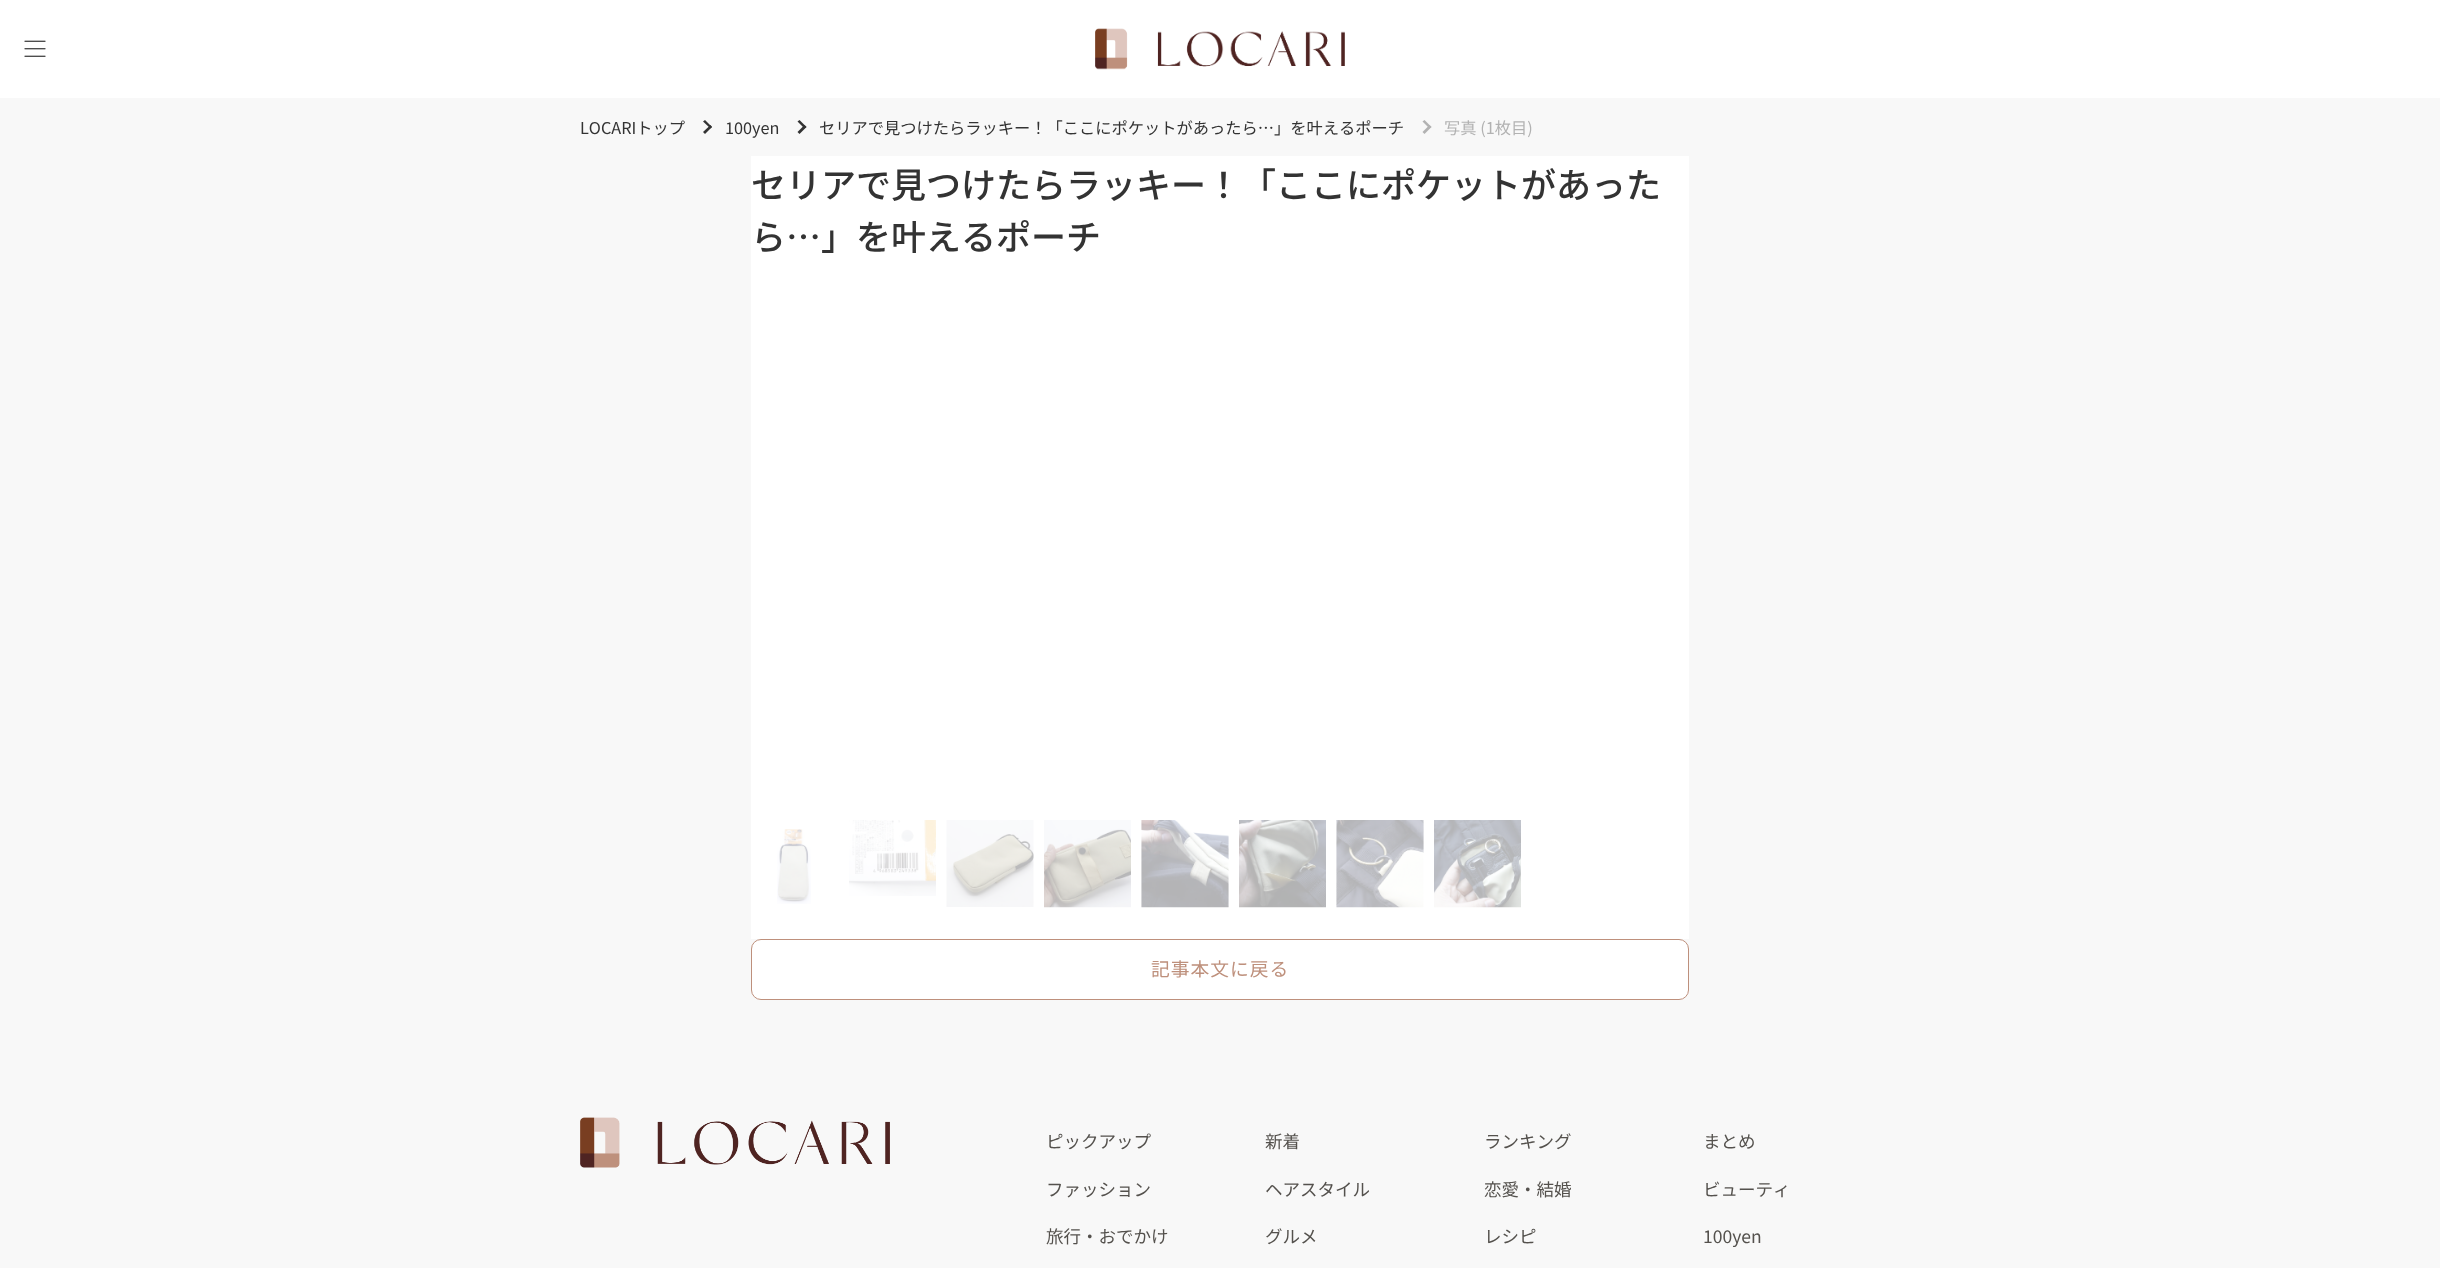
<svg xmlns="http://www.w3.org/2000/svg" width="2440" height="1268">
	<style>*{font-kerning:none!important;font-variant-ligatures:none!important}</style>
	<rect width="100%" height="100%" fill="#F8F8F8" />
	<rect x="0" y="0" width="2440" height="98" fill="#FFFFFF" />
	<image x="24" y="40" width="22" height="17" href="assets/img1.png" />
	<image x="1095" y="28" width="250" height="42" href="assets/img2.png" />
	<text x="580" y="134" font-family="Noto Sans JP" font-size="16.25" fill="#333333">LOCARIトップ</text>
	<path d="M703 121.5L705 120L712 127L710.5 128.5Z" fill="#333333" />
	<path d="M703 132L710.5 125L712 127L705 134Z" fill="#333333" />
	<text x="725" y="134" font-family="Noto Sans JP" font-size="16.25" fill="#333333">100yen</text>
	<path d="M797.5 121.5L799.5 120L806.5 127L804.5 128.5Z" fill="#333333" />
	<path d="M797.5 132L804.5 125L806.5 127L799.5 134Z" fill="#333333" />
	<text x="819" y="134" font-family="Noto Sans JP" font-size="16.25" fill="#333333">セリアで見つけたらラッキー！「ここにポケットがあったら…」を叶えるポーチ</text>
	<path d="M1422.5 121.5L1424.5 120L1431.5 127L1429.5 128.5Z" fill="#B2B2B2" />
	<path d="M1422.5 132L1429.5 125L1431.5 127L1424.5 134Z" fill="#B2B2B2" />
	<text x="1444" y="134" font-family="Noto Sans JP" font-size="16.25" fill="#B2B2B2">写真 (1枚目)</text>
	<rect x="751" y="156" width="938" height="783" fill="#FFFFFF" />
	<g font-family="Noto Sans JP" font-size="35" font-weight="500" fill="#333333">
		<text x="751" y="198">セリアで見つけたらラッキー！「ここにポケットがあった</text>
		<text x="751" y="250">ら…」を叶えるポーチ</text>
	</g>
	<image x="777" y="829" width="34" height="75" href="assets/img3.png" />
	<image x="849" y="820" width="87" height="76" href="assets/img4.png" />
	<image x="946" y="820" width="88" height="87" href="assets/img5.png" />
	<image x="1044" y="820" width="87" height="88" href="assets/img6.png" />
	<image x="1141" y="820" width="88" height="88" href="assets/img7.png" />
	<image x="1239" y="820" width="87" height="88" href="assets/img8.png" />
	<image x="1336" y="820" width="88" height="88" href="assets/img9.png" />
	<image x="1434" y="820" width="87" height="88" href="assets/img10.png" />
	<rect x="751.5" y="939.5" width="937" height="60" rx="9.5" fill="#FFFFFF" stroke="#BE907C" />
	<text x="1151" y="976" font-family="Noto Sans JP" font-size="18.75" letter-spacing="1" fill="#BE907C">記事本文に戻る</text>
	<image x="580" y="1117" width="310" height="51" href="assets/img11.png" />
	<g font-family="Noto Sans JP" font-size="17.5" fill="#54514D">
		<text x="1046" y="1148">ピックアップ</text>
		<text x="1265" y="1148">新着</text>
		<text x="1484" y="1148">ランキング</text>
		<text x="1703" y="1148">まとめ</text>
		<text x="1046" y="1196">ファッション</text>
		<text x="1265" y="1196">ヘアスタイル</text>
		<text x="1484" y="1196">恋愛・結婚</text>
		<text x="1703" y="1196">ビューティ</text>
		<text x="1046" y="1243">旅行・おでかけ</text>
		<text x="1265" y="1243">グルメ</text>
		<text x="1484" y="1243">レシピ</text>
		<text x="1703" y="1243">100yen</text>
	</g>
</svg>
